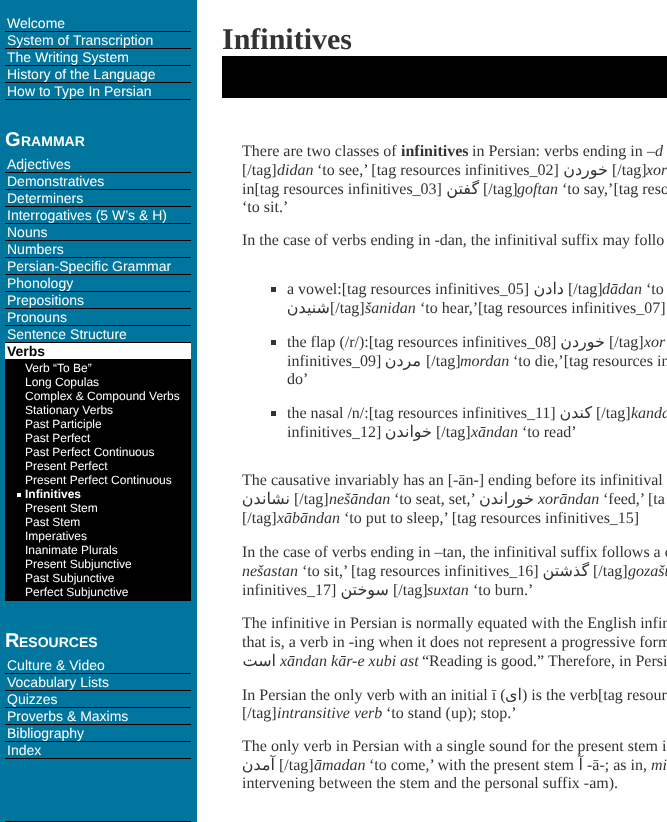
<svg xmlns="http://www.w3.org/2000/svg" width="667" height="822">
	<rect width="100%" height="100%" fill="#00759D" />
	<rect x="5" y="31" width="186" height="1" fill="#000000" />
	<text x="7" y="28" font-family="Liberation Sans" font-size="14" fill="#FFFFFF">Welcome</text>
	<rect x="5" y="48" width="186" height="1" fill="#000000" />
	<text x="7" y="45" font-family="Liberation Sans" font-size="14" fill="#FFFFFF">System of Transcription</text>
	<rect x="5" y="65" width="186" height="1" fill="#000000" />
	<text x="7" y="62" font-family="Liberation Sans" font-size="14" fill="#FFFFFF">The Writing System</text>
	<rect x="5" y="82" width="186" height="1" fill="#000000" />
	<text x="7" y="79" font-family="Liberation Sans" font-size="14" fill="#FFFFFF">History of the Language</text>
	<rect x="5" y="99" width="186" height="1" fill="#000000" />
	<text x="7" y="96" font-family="Liberation Sans" font-size="14" fill="#FFFFFF">How to Type In Persian</text>
	<text x="5" y="146" font-family="Liberation Sans" font-size="20" font-weight="700" fill="#FFFFFF">G</text>
	<text x="21" y="146" font-family="Liberation Sans" font-size="14" font-weight="700" fill="#FFFFFF">RAMMAR</text>
	<rect x="5" y="172" width="186" height="1" fill="#000000" />
	<text x="7" y="169" font-family="Liberation Sans" font-size="14" fill="#FFFFFF">Adjectives</text>
	<rect x="5" y="189" width="186" height="1" fill="#000000" />
	<text x="7" y="186" font-family="Liberation Sans" font-size="14" fill="#FFFFFF">Demonstratives</text>
	<rect x="5" y="206" width="186" height="1" fill="#000000" />
	<text x="7" y="203" font-family="Liberation Sans" font-size="14" fill="#FFFFFF">Determiners</text>
	<rect x="5" y="223" width="186" height="1" fill="#000000" />
	<text x="7" y="220" font-family="Liberation Sans" font-size="14" fill="#FFFFFF">Interrogatives (5 W’s &amp; H)</text>
	<rect x="5" y="240" width="186" height="1" fill="#000000" />
	<text x="7" y="237" font-family="Liberation Sans" font-size="14" fill="#FFFFFF">Nouns</text>
	<rect x="5" y="257" width="186" height="1" fill="#000000" />
	<text x="7" y="254" font-family="Liberation Sans" font-size="14" fill="#FFFFFF">Numbers</text>
	<rect x="5" y="274" width="186" height="1" fill="#000000" />
	<text x="7" y="271" font-family="Liberation Sans" font-size="14" fill="#FFFFFF">Persian-Specific Grammar</text>
	<rect x="5" y="291" width="186" height="1" fill="#000000" />
	<text x="7" y="288" font-family="Liberation Sans" font-size="14" fill="#FFFFFF">Phonology</text>
	<rect x="5" y="308" width="186" height="1" fill="#000000" />
	<text x="7" y="305" font-family="Liberation Sans" font-size="14" fill="#FFFFFF">Prepositions</text>
	<rect x="5" y="325" width="186" height="1" fill="#000000" />
	<text x="7" y="322" font-family="Liberation Sans" font-size="14" fill="#FFFFFF">Pronouns</text>
	<rect x="5" y="342" width="186" height="1" fill="#000000" />
	<text x="7" y="339" font-family="Liberation Sans" font-size="14" fill="#FFFFFF">Sentence Structure</text>
	<rect x="5" y="343" width="186" height="16" fill="#FFFFFF" />
	<text x="7" y="356" font-family="Liberation Sans" font-size="14" font-weight="700" fill="#000000">Verbs</text>
	<rect x="5" y="359" width="186" height="242" fill="#000000" />
	<g font-family="Liberation Sans" font-size="12" fill="#FFFFFF">
		<text x="25" y="372">Verb “To Be”</text>
		<text x="25" y="386">Long Copulas</text>
		<text x="25" y="400">Complex &amp; Compound Verbs</text>
		<text x="25" y="414">Stationary Verbs</text>
		<text x="25" y="428">Past Participle</text>
		<text x="25" y="442">Past Perfect</text>
		<text x="25" y="456">Past Perfect Continuous</text>
		<text x="25" y="470">Present Perfect</text>
		<text x="25" y="484">Present Perfect Continuous</text>
	</g>
	<rect x="17" y="493" width="4" height="4" fill="#FFFFFF" />
	<text x="25" y="498" font-family="Liberation Sans" font-size="12" font-weight="700" fill="#FFFFFF">Infinitives</text>
	<g font-family="Liberation Sans" font-size="12" fill="#FFFFFF">
		<text x="25" y="512">Present Stem</text>
		<text x="25" y="526">Past Stem</text>
		<text x="25" y="540">Imperatives</text>
		<text x="25" y="554">Inanimate Plurals</text>
		<text x="25" y="568">Present Subjunctive</text>
		<text x="25" y="582">Past Subjunctive</text>
		<text x="25" y="596">Perfect Subjunctive</text>
	</g>
	<text x="5" y="647" font-family="Liberation Sans" font-size="20" font-weight="700" fill="#FFFFFF">R</text>
	<text x="19" y="647" font-family="Liberation Sans" font-size="14" font-weight="700" fill="#FFFFFF">ESOURCES</text>
	<rect x="5" y="673" width="186" height="1" fill="#000000" />
	<text x="7" y="670" font-family="Liberation Sans" font-size="14" fill="#FFFFFF">Culture &amp; Video</text>
	<rect x="5" y="690" width="186" height="1" fill="#000000" />
	<text x="7" y="687" font-family="Liberation Sans" font-size="14" fill="#FFFFFF">Vocabulary Lists</text>
	<rect x="5" y="707" width="186" height="1" fill="#000000" />
	<text x="7" y="704" font-family="Liberation Sans" font-size="14" fill="#FFFFFF">Quizzes</text>
	<rect x="5" y="724" width="186" height="1" fill="#000000" />
	<text x="7" y="721" font-family="Liberation Sans" font-size="14" fill="#FFFFFF">Proverbs &amp; Maxims</text>
	<rect x="5" y="741" width="186" height="1" fill="#000000" />
	<text x="7" y="738" font-family="Liberation Sans" font-size="14" fill="#FFFFFF">Bibliography</text>
	<rect x="5" y="758" width="186" height="1" fill="#000000" />
	<text x="7" y="755" font-family="Liberation Sans" font-size="14" fill="#FFFFFF">Index</text>
	<rect x="5" y="821" width="186" height="1" fill="#000000" />
	<rect x="197" y="0" width="470" height="822" fill="#FFFFFF" />
	<text x="222" y="49" font-family="Liberation Serif" font-size="30" font-weight="700" fill="#333333">Infinitives</text>
	<rect x="222" y="56" width="445" height="42" fill="#000000" />
	<text x="242" y="156" font-family="Liberation Serif" font-size="16" fill="#333333">There are two classes of</text>
	<text x="401" y="156" font-family="Liberation Serif" font-size="16" font-weight="700" fill="#333333">infinitives</text>
	<text x="472" y="156" font-family="Liberation Serif" font-size="16" fill="#333333">in Persian: verbs ending in</text>
	<text x="647" y="156" font-family="Liberation Serif" font-size="16" font-style="italic" fill="#333333">–d</text>
	<text x="242" y="175" font-family="Liberation Serif" font-size="16" fill="#333333">[/tag]</text>
	<text x="277" y="175" font-family="Liberation Serif" font-size="16" font-style="italic" fill="#333333">didan</text>
	<text x="317" y="175" font-family="Liberation Serif" font-size="16" fill="#333333">‘to see,’ [tag resources infinitives_02]</text>
	<text x="608" y="175" font-family="DejaVu Sans" font-size="16" direction="rtl" fill="#333333">خوردن</text>
	<text x="612" y="175" font-family="Liberation Serif" font-size="16" fill="#333333">[/tag]</text>
	<text x="646" y="175" font-family="Liberation Serif" font-size="16" font-style="italic" fill="#333333">xor</text>
	<text x="242" y="194" font-family="Liberation Serif" font-size="16" fill="#333333">in[tag resources infinitives_03]</text>
	<text x="479" y="194" font-family="DejaVu Sans" font-size="16" direction="rtl" fill="#333333">گفتن</text>
	<text x="483" y="194" font-family="Liberation Serif" font-size="16" fill="#333333">[/tag]</text>
	<text x="517" y="194" font-family="Liberation Serif" font-size="16" font-style="italic" fill="#333333">goftan</text>
	<g font-family="Liberation Serif" font-size="16" fill="#333333">
		<text x="562" y="194">‘to say,’[tag reso</text>
		<text x="242" y="212">‘to sit.’</text>
		<text x="242" y="245">In the case of verbs ending in -dan, the infinitival suffix may follo</text>
	</g>
	<rect x="271" y="287" width="5" height="5" fill="#333333" />
	<text x="287" y="294" font-family="Liberation Serif" font-size="16" fill="#333333">a vowel:[tag resources infinitives_05]</text>
	<text x="564" y="294" font-family="DejaVu Sans" font-size="16" direction="rtl" fill="#333333">دادن</text>
	<text x="568" y="294" font-family="Liberation Serif" font-size="16" fill="#333333">[/tag]</text>
	<text x="602" y="294" font-family="Liberation Serif" font-size="16" font-style="italic" fill="#333333">dādan</text>
	<text x="646" y="294" font-family="Liberation Serif" font-size="16" fill="#333333">‘to</text>
	<text x="330" y="313" font-family="DejaVu Sans" font-size="16" direction="rtl" fill="#333333">شنیدن</text>
	<text x="330" y="313" font-family="Liberation Serif" font-size="16" fill="#333333">[/tag]</text>
	<text x="365" y="313" font-family="Liberation Serif" font-size="16" font-style="italic" fill="#333333">šanidan</text>
	<text x="420" y="313" font-family="Liberation Serif" font-size="16" fill="#333333">‘to hear,’[tag resources infinitives_07]</text>
	<rect x="271" y="340" width="5" height="5" fill="#333333" />
	<text x="287" y="347" font-family="Liberation Serif" font-size="16" fill="#333333">the flap (/r/):[tag resources infinitives_08]</text>
	<text x="605" y="347" font-family="DejaVu Sans" font-size="16" direction="rtl" fill="#333333">خوردن</text>
	<text x="609" y="347" font-family="Liberation Serif" font-size="16" fill="#333333">[/tag]</text>
	<text x="644" y="347" font-family="Liberation Serif" font-size="16" font-style="italic" fill="#333333">xor</text>
	<text x="287" y="366" font-family="Liberation Serif" font-size="16" fill="#333333">infinitives_09]</text>
	<text x="421" y="366" font-family="DejaVu Sans" font-size="16" direction="rtl" fill="#333333">مردن</text>
	<text x="426" y="366" font-family="Liberation Serif" font-size="16" fill="#333333">[/tag]</text>
	<text x="460" y="366" font-family="Liberation Serif" font-size="16" font-style="italic" fill="#333333">mordan</text>
	<g font-family="Liberation Serif" font-size="16" fill="#333333">
		<text x="513" y="366">‘to die,’[tag resources in</text>
		<text x="287" y="384">do’</text>
	</g>
	<rect x="271" y="411" width="5" height="5" fill="#333333" />
	<text x="287" y="418" font-family="Liberation Serif" font-size="16" fill="#333333">the nasal /n/:[tag resources infinitives_11]</text>
	<text x="592" y="418" font-family="DejaVu Sans" font-size="16" direction="rtl" fill="#333333">کندن</text>
	<text x="596" y="418" font-family="Liberation Serif" font-size="16" fill="#333333">[/tag]</text>
	<text x="631" y="418" font-family="Liberation Serif" font-size="16" font-style="italic" fill="#333333">kanda</text>
	<text x="287" y="437" font-family="Liberation Serif" font-size="16" fill="#333333">infinitives_12]</text>
	<text x="432" y="437" font-family="DejaVu Sans" font-size="16" direction="rtl" fill="#333333">خواندن</text>
	<text x="436" y="437" font-family="Liberation Serif" font-size="16" fill="#333333">[/tag]</text>
	<text x="471" y="437" font-family="Liberation Serif" font-size="16" font-style="italic" fill="#333333">xāndan</text>
	<g font-family="Liberation Serif" font-size="16" fill="#333333">
		<text x="522" y="437">‘to read’</text>
		<text x="242" y="485">The causative invariably has an [-ān-] ending before its infinitival</text>
	</g>
	<text x="290" y="504" font-family="DejaVu Sans" font-size="16" direction="rtl" fill="#333333">نشاندن</text>
	<text x="294" y="504" font-family="Liberation Serif" font-size="16" fill="#333333">[/tag]</text>
	<text x="329" y="504" font-family="Liberation Serif" font-size="16" font-style="italic" fill="#333333">nešāndan</text>
	<text x="394" y="504" font-family="Liberation Serif" font-size="16" fill="#333333">‘to seat, set,’</text>
	<text x="534" y="504" font-family="DejaVu Sans" font-size="16" direction="rtl" fill="#333333">خوراندن</text>
	<text x="538" y="504" font-family="Liberation Serif" font-size="16" font-style="italic" fill="#333333">xorāndan</text>
	<g font-family="Liberation Serif" font-size="16" fill="#333333">
		<text x="603" y="504">‘feed,’ [ta</text>
		<text x="242" y="523">[/tag]</text>
	</g>
	<text x="277" y="523" font-family="Liberation Serif" font-size="16" font-style="italic" fill="#333333">xābāndan</text>
	<g font-family="Liberation Serif" font-size="16" fill="#333333">
		<text x="344" y="523">‘to put to sleep,’ [tag resources infinitives_15]</text>
		<text x="242" y="557">In the case of verbs ending in –tan, the infinitival suffix follows a c</text>
	</g>
	<text x="242" y="576" font-family="Liberation Serif" font-size="16" font-style="italic" fill="#333333">nešastan</text>
	<text x="302" y="576" font-family="Liberation Serif" font-size="16" fill="#333333">‘to sit,’ [tag resources infinitives_16]</text>
	<text x="589" y="576" font-family="DejaVu Sans" font-size="16" direction="rtl" fill="#333333">گذشتن</text>
	<text x="593" y="576" font-family="Liberation Serif" font-size="16" fill="#333333">[/tag]</text>
	<text x="628" y="576" font-family="Liberation Serif" font-size="16" font-style="italic" fill="#333333">gozašt</text>
	<text x="242" y="595" font-family="Liberation Serif" font-size="16" fill="#333333">infinitives_17]</text>
	<text x="389" y="595" font-family="DejaVu Sans" font-size="16" direction="rtl" fill="#333333">سوختن</text>
	<text x="393" y="595" font-family="Liberation Serif" font-size="16" fill="#333333">[/tag]</text>
	<text x="427" y="595" font-family="Liberation Serif" font-size="16" font-style="italic" fill="#333333">suxtan</text>
	<g font-family="Liberation Serif" font-size="16" fill="#333333">
		<text x="473" y="595">‘to burn.’</text>
		<text x="242" y="628">The infinitive in Persian is normally equated with the English infin</text>
		<text x="242" y="647">that is, a verb in -ing when it does not represent a progressive form</text>
	</g>
	<text x="276" y="666" font-family="DejaVu Sans" font-size="16" direction="rtl" fill="#333333">است</text>
	<text x="280" y="666" font-family="Liberation Serif" font-size="16" font-style="italic" fill="#333333">xāndan kār-e xubi ast</text>
	<g font-family="Liberation Serif" font-size="16" fill="#333333">
		<text x="422" y="666">“Reading is good.” Therefore, in Persi</text>
		<text x="242" y="700">In Persian the only verb with an initial ī (</text>
	</g>
	<text x="522" y="700" font-family="DejaVu Sans" font-size="16" direction="rtl" fill="#333333">ای</text>
	<g font-family="Liberation Serif" font-size="16" fill="#333333">
		<text x="522" y="700">) is the verb[tag resour</text>
		<text x="242" y="718">[/tag]</text>
	</g>
	<text x="277" y="718" font-family="Liberation Serif" font-size="16" font-style="italic" fill="#333333">intransitive verb</text>
	<g font-family="Liberation Serif" font-size="16" fill="#333333">
		<text x="386" y="718">‘to stand (up); stop.’</text>
		<text x="242" y="751">The only verb in Persian with a single sound for the present stem i</text>
	</g>
	<text x="275" y="770" font-family="DejaVu Sans" font-size="16" direction="rtl" fill="#333333">آمدن</text>
	<text x="279" y="770" font-family="Liberation Serif" font-size="16" fill="#333333">[/tag]</text>
	<text x="314" y="770" font-family="Liberation Serif" font-size="16" font-style="italic" fill="#333333">āmadan</text>
	<text x="369" y="770" font-family="Liberation Serif" font-size="16" fill="#333333">‘to come,’ with the present stem</text>
	<text x="583" y="770" font-family="DejaVu Sans" font-size="16" direction="rtl" fill="#333333">آ</text>
	<text x="587" y="770" font-family="Liberation Serif" font-size="16" fill="#333333">-ā-; as in,</text>
	<text x="651" y="770" font-family="Liberation Serif" font-size="16" font-style="italic" fill="#333333">mi</text>
	<text x="242" y="788" font-family="Liberation Serif" font-size="16" fill="#333333">intervening between the stem and the personal suffix -am).</text>
</svg>
